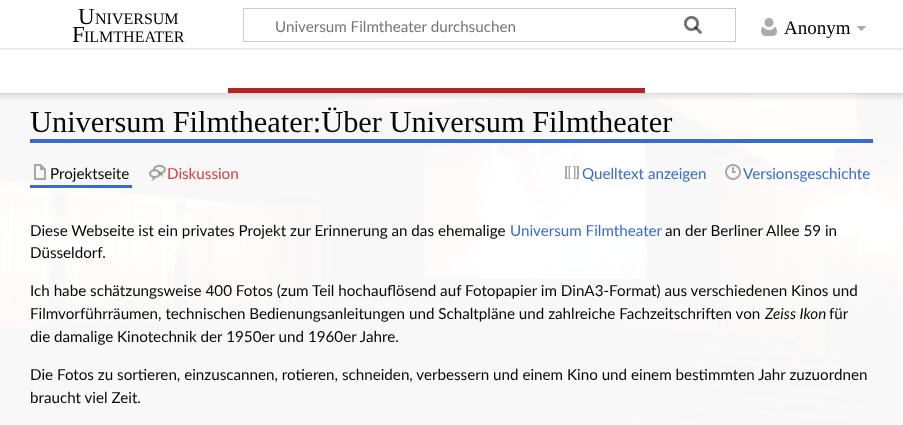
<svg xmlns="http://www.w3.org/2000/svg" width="903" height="425">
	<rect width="100%" height="100%" fill="#FFFFFF" />
	<image x="0" y="93" width="903" height="332" href="assets/img1.png" />
	<rect x="0" y="93" width="903" height="332" fill="#FFFFFF" fill-opacity="0.97" />
	<rect x="0" y="48" width="903" height="45" fill="#000000" fill-opacity="0.2" filter="blur(1px)" />
	<rect x="-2" y="49" width="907" height="49" fill="#000000" fill-opacity="0.07" filter="blur(1.5px)" />
	<rect x="0" y="46" width="903" height="2" fill="#FFFFFF" />
	<text x="78" y="24" font-family="Liberation Serif" font-size="23" fill="#000000">U</text>
	<text x="95" y="24" font-family="Liberation Serif" font-size="16" fill="#000000">NIVERSUM</text>
	<text x="72" y="42" font-family="Liberation Serif" font-size="23" fill="#000000">F</text>
	<text x="84" y="42" font-family="Liberation Serif" font-size="16" fill="#000000">ILMTHEATER</text>
	<rect x="243.5" y="8.5" width="492" height="33" fill="none" stroke="#C8CCD1" />
	<image x="684" y="16" width="18" height="18" href="assets/img2.png" />
	<text x="275" y="32" font-family="Lato" font-size="15.2" fill="#757575">Universum Filmtheater durchsuchen</text>
	<image x="684" y="16" width="18" height="18" href="assets/img3.png" />
	<image x="761" y="18" width="16" height="18" href="assets/img4.png" />
	<text x="784" y="34" font-family="Liberation Serif" font-size="19" fill="#000000">Anonym</text>
	<path d="M866.5 26L861.5 31L856.5 26Z" fill="#ABABAB" />
	<rect x="0" y="50" width="903" height="43" fill="#FFFFFF" />
	<rect x="0" y="48" width="903" height="2" fill="#EAECF0" />
	<rect x="228" y="88" width="417" height="5" fill="#B32424" />
	<rect x="30" y="139" width="843" height="4" fill="#3366CC" fill-opacity="0.97" />
	<text x="30" y="132" font-family="Liberation Serif" font-size="30.4" fill="#070707">Universum Filmtheater:Über Universum Filmtheater</text>
	<rect x="30" y="185" width="102" height="3" fill="#3366CC" fill-opacity="0.97" />
	<image x="34" y="164" width="12" height="16" href="assets/img5.png" />
	<text x="50" y="179" font-family="Lato" font-size="15.2" fill="#070707">Projektseite</text>
	<image x="149" y="164" width="17" height="17" href="assets/img6.png" />
	<text x="167" y="179" font-family="Lato" font-size="15.2" fill="#DE3939">Diskussion</text>
	<image x="565" y="166" width="14" height="13" href="assets/img7.png" />
	<text x="582" y="179" font-family="Lato" font-size="15.2" fill="#396BCD">Quelltext anzeigen</text>
	<image x="725" y="164" width="16" height="16" href="assets/img8.png" />
	<text x="743" y="179" font-family="Lato" font-size="15.2" fill="#396BCD">Versionsgeschichte</text>
	<text x="30" y="236" font-family="Lato" font-size="15.2" fill="#070707">Diese Webseite ist ein privates Projekt zur Erinnerung an das ehemalige</text>
	<text x="510" y="236" font-family="Lato" font-size="15.2" fill="#396BCD">Universum Filmtheater</text>
	<g font-family="Lato" font-size="15.2" fill="#070707">
		<text x="665" y="236">an der Berliner Allee 59 in</text>
		<text x="30" y="258">Düsseldorf.</text>
		<text x="30" y="296">Ich habe schätzungsweise 400 Fotos (zum Teil hochauflösend auf Fotopapier im DinA3-Format) aus verschiedenen Kinos und</text>
		<text x="30" y="319">Filmvorführräumen, technischen Bedienungsanleitungen und Schaltpläne und zahlreiche Fachzeitschriften von</text>
	</g>
	<text x="765" y="319" font-family="Lato" font-size="15.2" font-style="italic" fill="#070707">Zeiss Ikon</text>
	<g font-family="Lato" font-size="15.2" fill="#070707">
		<text x="829" y="319">für</text>
		<text x="30" y="342">die damalige Kinotechnik der 1950er und 1960er Jahre.</text>
		<text x="30" y="380">Die Fotos zu sortieren, einzuscannen, rotieren, schneiden, verbessern und einem Kino und einem bestimmten Jahr zuzuordnen</text>
		<text x="30" y="403">braucht viel Zeit.</text>
	</g>
</svg>
